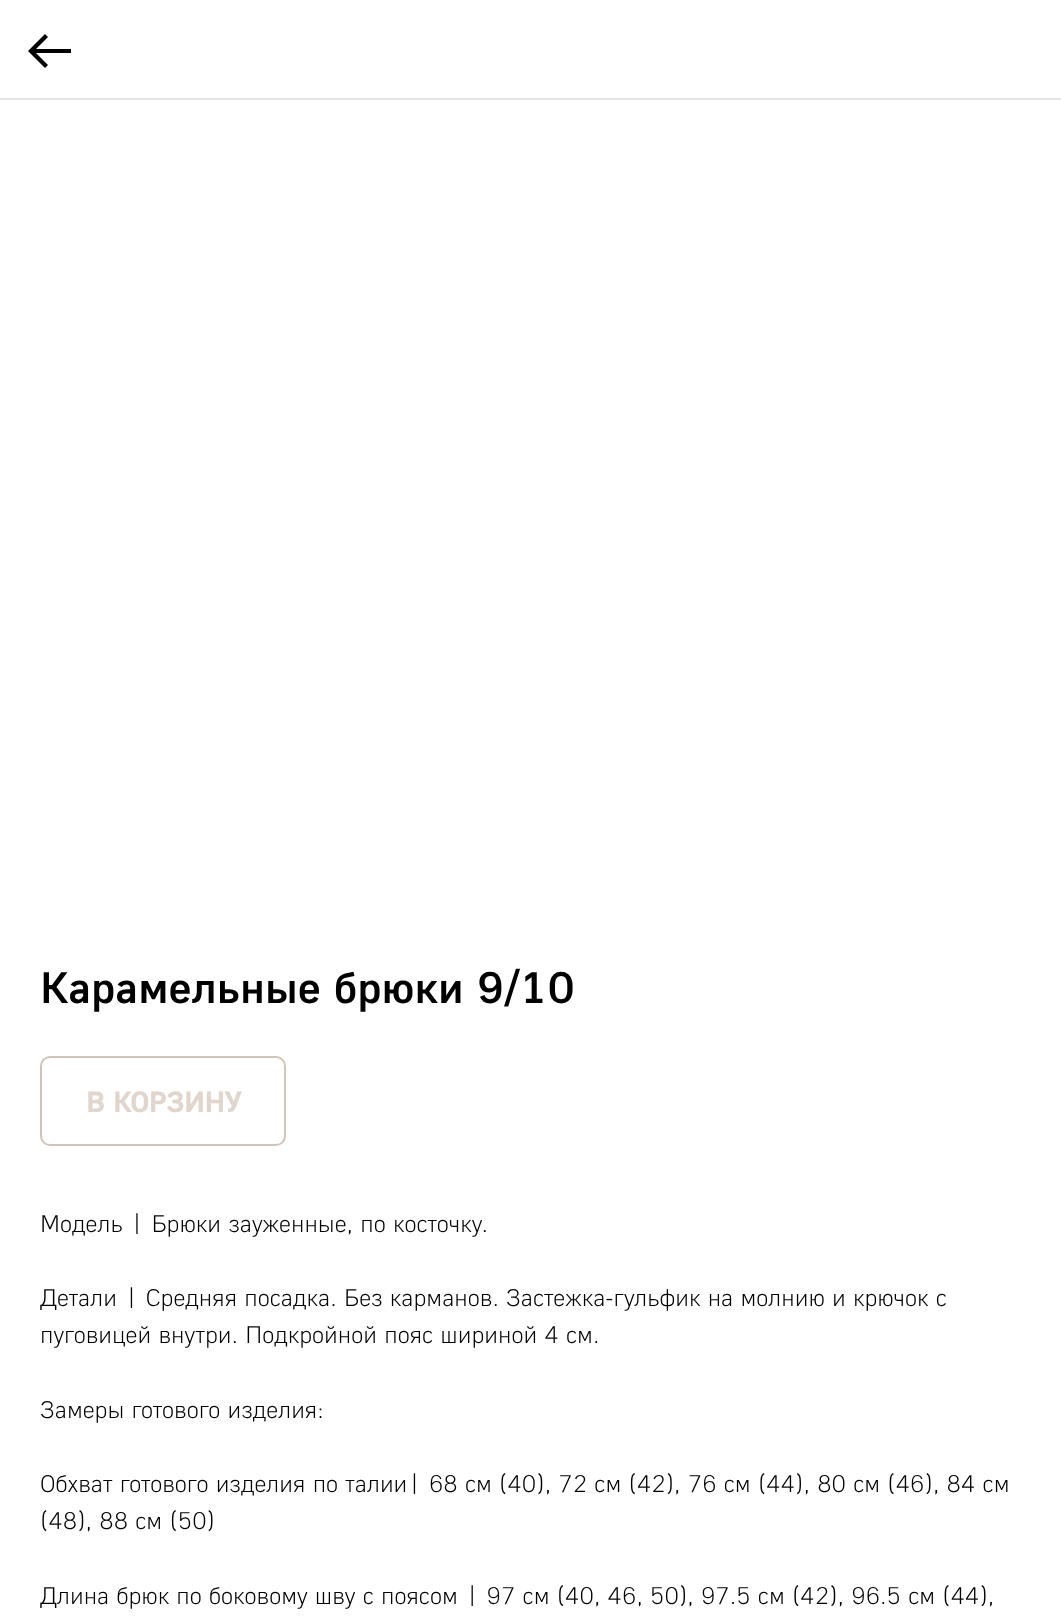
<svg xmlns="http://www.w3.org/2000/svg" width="1061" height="1621">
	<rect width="100%" height="100%" fill="#FFFFFF" />
	<rect x="0" y="98" width="1061" height="2" fill="#E6E6E6" />
	<path d="M45 34L48 37L36 49H71V53H36L48 65L45 68L28 51Z" fill="#000000" />
	<text x="40" y="1003" font-family="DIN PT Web" font-size="44" font-weight="500" fill="#000000">Карамельные брюки 9/10</text>
	<rect x="41" y="1057" width="244" height="88" rx="9" fill="none" stroke="#D3C4B9" stroke-width="2" />
	<text x="86" y="1112" font-family="DIN PT Web" font-size="28" font-weight="700" fill="#E0D6CE">В КОРЗИНУ</text>
	<g font-family="DIN PT Web" font-size="24" font-weight="300" fill="#000000">
		<text x="40" y="1232">Модель | Брюки зауженные, по косточку.</text>
		<text x="40" y="1306">Детали | Средняя посадка. Без карманов. Застежка-гульфик на молнию и крючок с</text>
		<text x="40" y="1343">пуговицей внутри. Подкройной пояс шириной 4 см.</text>
		<text x="40" y="1418">Замеры готового изделия:</text>
		<text x="40" y="1492">Обхват готового изделия по талии| 68 см (40), 72 см (42), 76 см (44), 80 см (46), 84 см</text>
		<text x="40" y="1529">(48), 88 см (50)</text>
		<text x="40" y="1604">Длина брюк по боковому шву с поясом | 97 см (40, 46, 50), 97.5 см (42), 96.5 см (44),</text>
	</g>
</svg>
